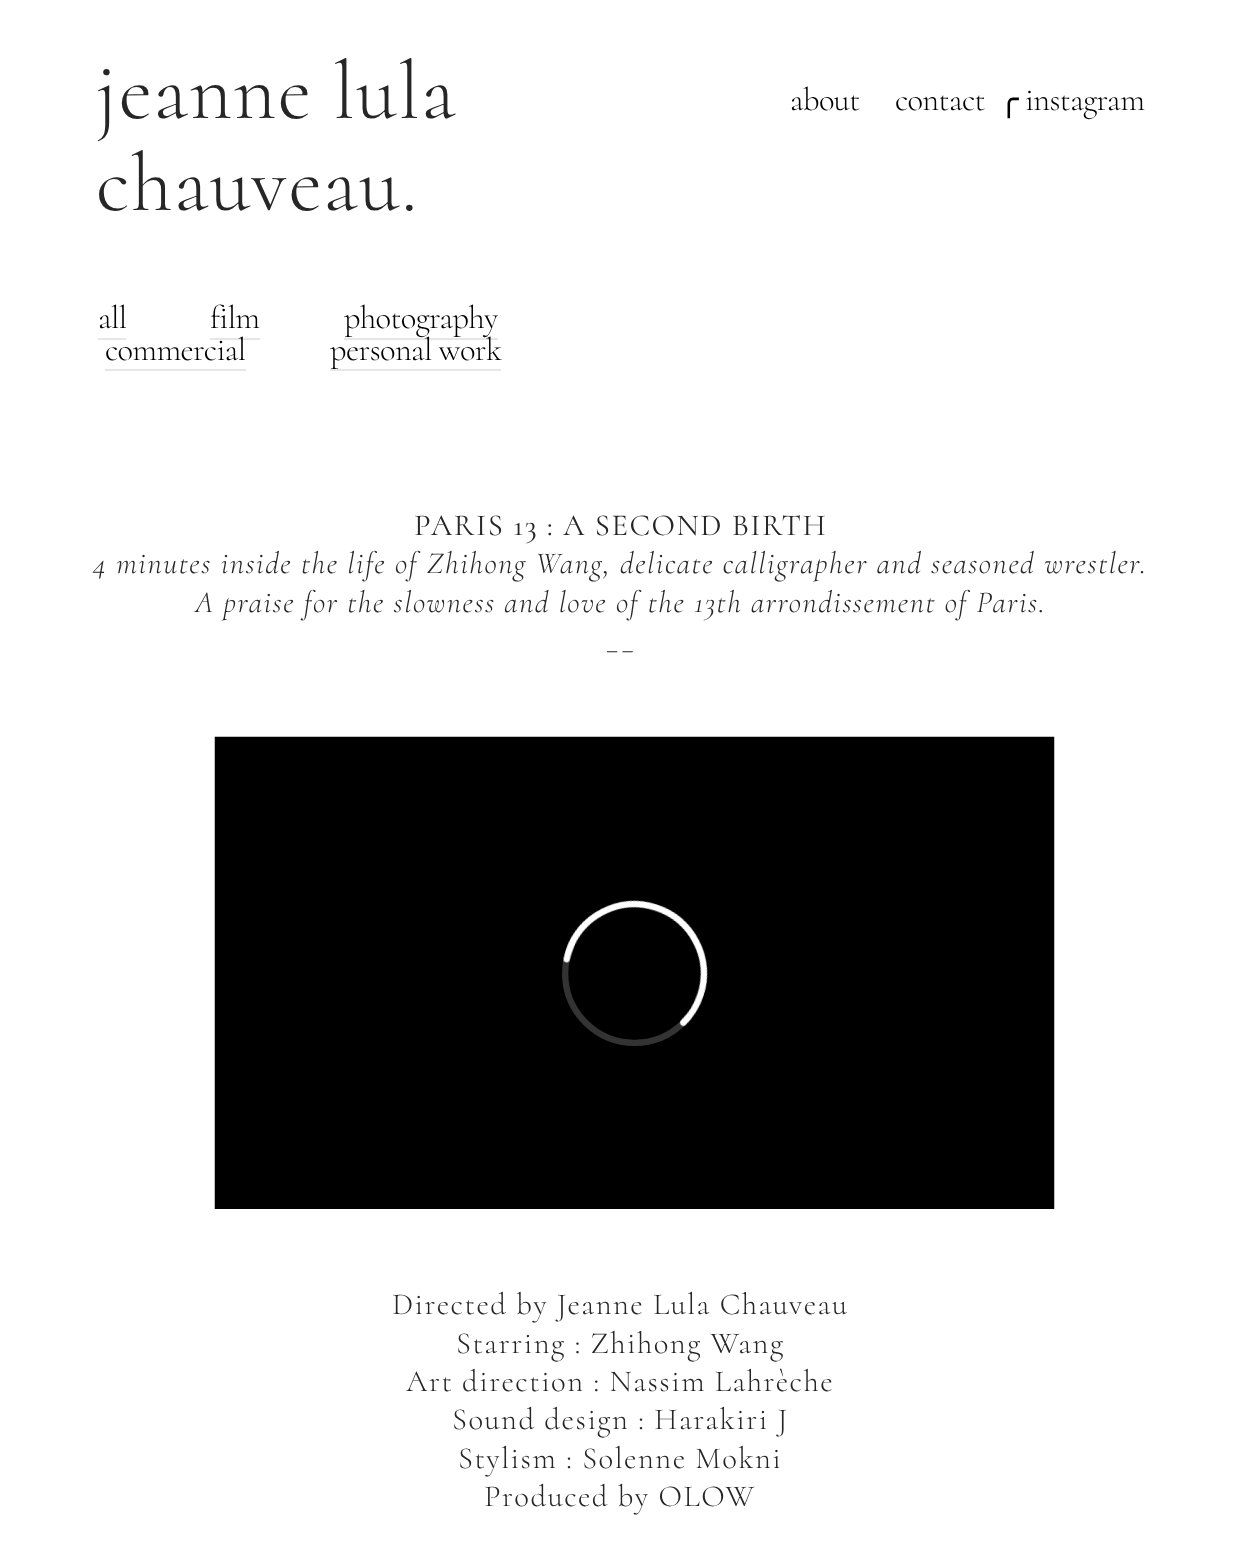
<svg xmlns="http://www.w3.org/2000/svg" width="1240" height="1552">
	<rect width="100%" height="100%" fill="#FFFFFF" />
	<g font-family="Cormorant" font-size="82.75" font-weight="300" letter-spacing="1.53" fill="#262626">
		<text x="96" y="118">jeanne lula</text>
		<text x="96" y="210">chauveau.</text>
	</g>
	<g font-family="Cormorant" font-size="32.5" font-weight="300" letter-spacing="-0.6" fill="#000000">
		<text x="790" y="110">about</text>
		<text x="895" y="110">contact</text>
	</g>
	<text x="999" y="110" font-family="DejaVu Sans" font-size="32.5" letter-spacing="-0.6" fill="#000000">╭</text>
	<g font-family="Cormorant" font-size="32.5" font-weight="300" letter-spacing="-0.6" fill="#000000">
		<text x="1025" y="110">instagram</text>
		<text x="98" y="328">all</text>
	</g>
	<rect x="98" y="338" width="28" height="2" fill="#E6E6E6" />
	<text x="210" y="328" font-family="Cormorant" font-size="32.5" font-weight="300" letter-spacing="-0.6" fill="#000000">film</text>
	<rect x="210" y="338" width="50" height="2" fill="#E6E6E6" />
	<text x="344" y="328" font-family="Cormorant" font-size="32.5" font-weight="300" letter-spacing="-0.6" fill="#000000">photography</text>
	<rect x="344" y="338" width="154" height="2" fill="#E6E6E6" />
	<text x="105" y="360" font-family="Cormorant" font-size="32.5" font-weight="300" letter-spacing="-0.6" fill="#000000">commercial</text>
	<rect x="105" y="369" width="141" height="2" fill="#E6E6E6" />
	<text x="330" y="360" font-family="Cormorant" font-size="32.5" font-weight="300" letter-spacing="-0.6" fill="#000000">personal work</text>
	<rect x="330" y="369" width="171" height="2" fill="#E6E6E6" />
	<text x="414" y="535" font-family="Cormorant" font-size="30.65" letter-spacing="1.53" fill="#262626">PARIS 13 : A SECOND BIRTH</text>
	<g font-family="Cormorant" font-size="30.65" font-weight="300" font-style="italic" letter-spacing="1.53" fill="#262626">
		<text x="93" y="573">4 minutes inside the life of Zhihong Wang, delicate calligrapher and seasoned wrestler.</text>
		<text x="195" y="612">A praise for the slowness and love of the 13th arrondissement of Paris.</text>
	</g>
	<text x="606" y="650" font-family="Cormorant" font-size="30.65" font-weight="300" letter-spacing="1.53" fill="#262626">__</text>
	<image x="214" y="736" width="841" height="473" href="assets/img1.png" />
	<g font-family="Cormorant" font-size="30.65" font-weight="300" letter-spacing="1.53" fill="#262626">
		<text x="392" y="1314">Directed by Jeanne Lula Chauveau</text>
		<text x="456" y="1353">Starring : Zhihong Wang</text>
		<text x="406" y="1391">Art direction : Nassim Lahrèche</text>
		<text x="452" y="1429">Sound design : Harakiri J</text>
		<text x="458" y="1468">Stylism : Solenne Mokni</text>
		<text x="484" y="1506">Produced by OLOW</text>
	</g>
</svg>
